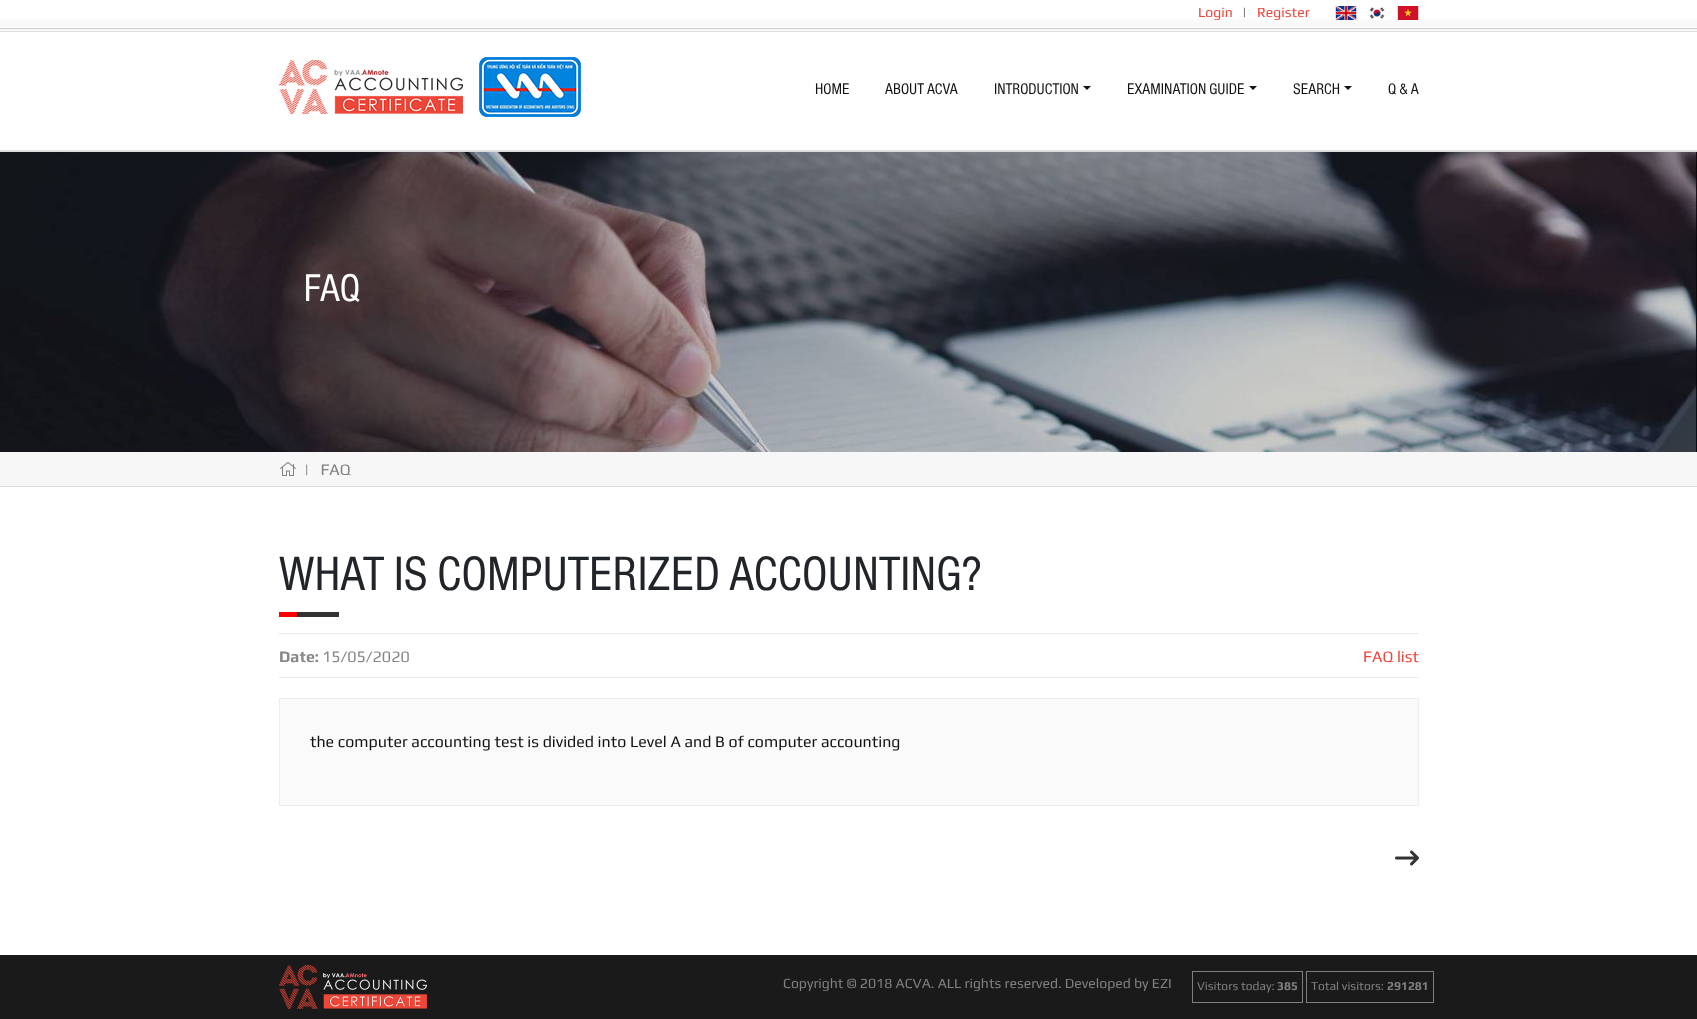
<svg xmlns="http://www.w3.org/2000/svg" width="1697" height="1019">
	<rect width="100%" height="100%" fill="#FFFFFF" />
	<image x="0" y="19" width="1697" height="11" href="assets/img1.png" />
	<rect x="0" y="31" width="1697" height="1" fill="#DDDDDD" />
	<text x="1198" y="17" font-family="Play" font-size="14" fill="#EE463B">Login</text>
	<text x="1242" y="17" font-family="Play" font-size="14" fill="#555555">|</text>
	<text x="1257" y="17" font-family="Play" font-size="14" fill="#EE463B">Register</text>
	<image x="1335" y="6" width="22" height="14" href="assets/img2.png" />
	<image x="1367" y="7" width="20" height="13" href="assets/img3.png" />
	<image x="1397" y="6" width="22" height="14" href="assets/img4.png" />
	<rect x="0" y="150" width="1697" height="2" fill="#DDDDDD" />
	<image x="279" y="60" width="184" height="54" href="assets/img5.png" />
	<image x="479" y="57" width="102" height="60" href="assets/img6.png" />
	<g font-family="'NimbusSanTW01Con'" font-size="16" fill="#131313">
		<text x="815" y="94">HOME</text>
		<text x="885" y="94">ABOUT ACVA</text>
		<text x="994" y="94">INTRODUCTION</text>
	</g>
	<path d="M1083 86H1091L1087 90Z" fill="#131313" />
	<text x="1127" y="94" font-family="'NimbusSanTW01Con'" font-size="16" fill="#131313">EXAMINATION GUIDE</text>
	<path d="M1249 86H1257L1253 90Z" fill="#131313" />
	<text x="1293" y="94" font-family="'NimbusSanTW01Con'" font-size="16" fill="#131313">SEARCH</text>
	<path d="M1344 86H1352L1348 90Z" fill="#131313" />
	<text x="1388" y="94" font-family="'NimbusSanTW01Con'" font-size="16" fill="#131313">Q &amp; A</text>
	<image x="0" y="152" width="1697" height="300" href="assets/img7.png" />
	<text x="304" y="301" font-family="'NimbusSanTW01Con'" font-size="40" fill="#FFFFFF">FAQ</text>
	<rect x="0" y="452" width="1697" height="34" fill="#F7F7F7" />
	<rect x="0" y="486" width="1697" height="1" fill="#DDDDDD" />
	<image x="280" y="462" width="16" height="14" href="assets/img8.png" />
	<text x="304" y="475" font-family="Play" font-size="16" fill="#808080" xml:space="preserve">|   FAQ</text>
	<text x="279" y="590" font-family="'NimbusSanTW01Con'" font-size="50" fill="#212529">WHAT IS COMPUTERIZED ACCOUNTING?</text>
	<rect x="297" y="612" width="42" height="5" fill="#333333" />
	<rect x="279" y="612" width="18" height="5" fill="#FF0000" />
	<rect x="279" y="633" width="1140" height="1" fill="#EAEAEA" />
	<rect x="279" y="677" width="1140" height="1" fill="#EAEAEA" />
	<text x="279" y="662" font-family="Play" font-size="16" font-weight="700" fill="#888888">Date:</text>
	<text x="322" y="662" font-family="Play" font-size="16" fill="#888888">15/05/2020</text>
	<text x="1363" y="662" font-family="Play" font-size="16" fill="#EE463B">FAQ list</text>
	<rect x="279.5" y="698.5" width="1139" height="107" fill="#FAFAFA" stroke="#EEEEEE" />
	<text x="310" y="747" font-family="Play" font-size="16" fill="#131313">the computer accounting test is divided into Level A and B of computer accounting</text>
	<image x="1395" y="850" width="24" height="16" href="assets/img9.png" />
	<rect x="0" y="955" width="1697" height="64" fill="#1A1A1A" />
	<image x="279" y="965" width="148" height="44" href="assets/img10.png" />
	<text x="783" y="988" font-family="Play" font-size="14" fill="#808080">Copyright © 2018 ACVA. ALL rights reserved. Developed by EZI</text>
	<rect x="1192.5" y="971.5" width="110" height="31" fill="none" stroke="#7F7F7F" />
	<text x="1197" y="990" font-family="Play" font-size="12" fill="#808080">Visitors today:</text>
	<text x="1277" y="990" font-family="Play" font-size="12" font-weight="700" fill="#808080">385</text>
	<rect x="1306.5" y="971.5" width="127" height="31" fill="none" stroke="#7F7F7F" />
	<text x="1311" y="990" font-family="Play" font-size="12" fill="#808080">Total visitors:</text>
	<text x="1387" y="990" font-family="Play" font-size="12" font-weight="700" fill="#808080">291281</text>
</svg>
